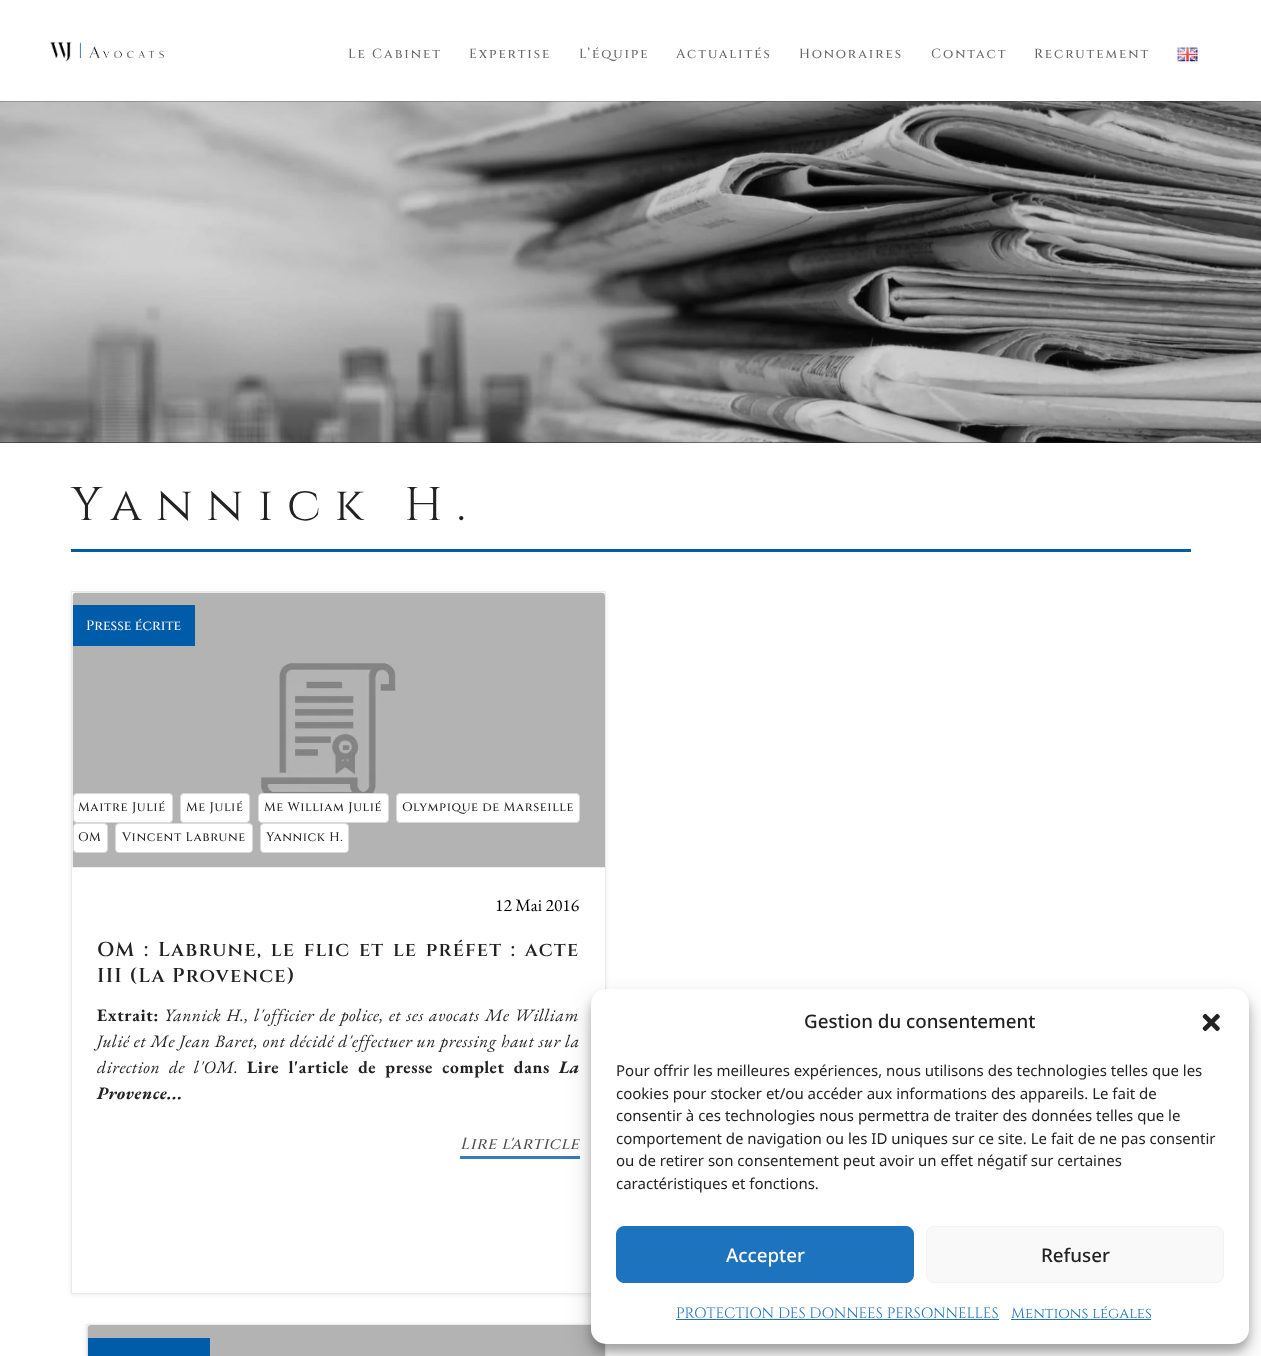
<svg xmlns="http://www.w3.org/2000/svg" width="1261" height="1356">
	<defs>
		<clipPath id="clip1"><path d="M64 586H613V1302H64ZM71 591H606V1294H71Z" clip-rule="evenodd" /></clipPath>
	</defs>
	<rect width="100%" height="100%" fill="#FFFFFF" />
	<image x="50" y="42" width="114" height="20" href="assets/img1.png" />
	<g font-family="Cinzel" font-size="13.25" font-weight="500" letter-spacing="1.9" fill="#666666">
		<text x="348" y="58">Le Cabinet</text>
		<text x="469" y="58">Expertise</text>
		<text x="579" y="58">L’équipe</text>
		<text x="676" y="58">Actualités</text>
		<text x="799" y="58">Honoraires</text>
		<text x="931" y="58">Contact</text>
		<text x="1034" y="58">Recrutement</text>
	</g>
	<image x="1177" y="47" width="21" height="15" href="assets/img2.png" />
	<rect x="0" y="101" width="1261" height="342" fill="#1D1D1D" />
	<image x="0" y="101" width="1261" height="342" href="assets/img3.png" />
	<rect x="71" y="549" width="1120" height="3" fill="#005CA9" />
	<text x="71" y="520" font-family="Cinzel" font-size="47.25" letter-spacing="14.25" fill="#222222">Yannick H.</text>
	<g clip-path="url(#clip1)">
		<rect x="71" y="593" width="535" height="702" fill="#000000" fill-opacity="0.08" filter="blur(2px)" />
	</g>
	<rect x="71.5" y="591.5" width="534" height="702" fill="none" stroke="#EAEAEA" />
	<image x="72" y="592" width="533" height="276" href="assets/img4.png" />
	<rect x="73" y="605" width="122" height="41" fill="#005CA9" />
	<text x="86" y="630" font-family="Cinzel" font-size="13.75" font-weight="500" fill="#FFFFFF">Presse écrite</text>
	<rect x="73.5" y="793.5" width="99" height="29" rx="3.5" fill="#FFFFFF" stroke="#D9D9D9" />
	<text x="78" y="811" font-family="Cinzel" font-size="12.5" font-weight="500" letter-spacing="0.62" fill="#222222">Maitre Julié</text>
	<rect x="180.5" y="793.5" width="69" height="29" rx="3.5" fill="#FFFFFF" stroke="#D9D9D9" />
	<text x="186" y="811" font-family="Cinzel" font-size="12.5" font-weight="500" letter-spacing="0.62" fill="#222222">Me Julié</text>
	<rect x="258.5" y="793.5" width="130" height="29" rx="3.5" fill="#FFFFFF" stroke="#D9D9D9" />
	<text x="264" y="811" font-family="Cinzel" font-size="12.5" font-weight="500" letter-spacing="0.62" fill="#222222">Me William Julié</text>
	<rect x="396.5" y="793.5" width="183" height="29" rx="3.5" fill="#FFFFFF" stroke="#D9D9D9" />
	<text x="402" y="811" font-family="Cinzel" font-size="12.5" font-weight="500" letter-spacing="0.62" fill="#222222">Olympique de Marseille</text>
	<rect x="73.5" y="823.5" width="34" height="29" rx="3.5" fill="#FFFFFF" stroke="#D9D9D9" />
	<text x="78" y="841" font-family="Cinzel" font-size="12.5" font-weight="500" letter-spacing="0.62" fill="#222222">OM</text>
	<rect x="115.5" y="823.5" width="137" height="29" rx="3.5" fill="#FFFFFF" stroke="#D9D9D9" />
	<text x="122" y="841" font-family="Cinzel" font-size="12.5" font-weight="500" letter-spacing="0.62" fill="#222222">Vincent Labrune</text>
	<rect x="260.5" y="823.5" width="88" height="29" rx="3.5" fill="#FFFFFF" stroke="#D9D9D9" />
	<text x="266" y="841" font-family="Cinzel" font-size="12.5" font-weight="500" letter-spacing="0.62" fill="#222222">Yannick H.</text>
	<text x="495" y="911" font-family="EB Garamond" font-size="17.5" fill="#000000">12 Mai 2016</text>
	<g font-family="Cinzel" font-size="20" font-weight="600" letter-spacing="1.25" fill="#222222">
		<text x="97" y="956" word-spacing="2.25">OM : Labrune, le flic et le préfet : acte</text>
		<text x="97" y="982">III (La Provence)</text>
	</g>
	<text x="97" y="1021" font-family="EB Garamond" font-size="17.5" font-weight="700" letter-spacing="0.62" fill="#222222">Extrait:</text>
	<g font-family="EB Garamond" font-size="17.5" font-style="italic" letter-spacing="0.62" fill="#222222">
		<text x="164" y="1021" word-spacing="1">Yannick H., l'officier de police, et ses avocats Me William</text>
		<text x="97" y="1047" word-spacing="0.25">Julié et Me Jean Baret, ont décidé d'effectuer un pressing haut sur la</text>
		<text x="97" y="1073" word-spacing="4.5">direction de l'OM.</text>
	</g>
	<text x="247" y="1073" word-spacing="4.5" font-family="EB Garamond" font-size="17.5" font-weight="700" letter-spacing="0.62" fill="#222222">Lire l'article de presse complet dans</text>
	<g font-family="EB Garamond" font-size="17.5" font-weight="700" font-style="italic" letter-spacing="0.62" fill="#222222">
		<text x="559" y="1073">La</text>
		<text x="97" y="1099">Provence...</text>
	</g>
	<text x="460" y="1149" font-family="Cinzel" font-size="16.25" font-weight="500" font-style="italic" letter-spacing="0.62" fill="#4E4E4E">Lire l'article</text>
	<rect x="460" y="1156" width="120" height="3" fill="#337DBA" />
	<rect x="86" y="1325" width="520" height="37" fill="#000000" fill-opacity="0.08" filter="blur(2px)" />
	<rect x="86.5" y="1324.5" width="519" height="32" fill="none" stroke="#EAEAEA" />
	<image x="87" y="1325" width="518" height="31" href="assets/img5.png" />
	<rect x="88" y="1338" width="122" height="18" fill="#005CA9" />
	<rect x="591" y="996" width="658" height="355" rx="15" fill="#000000" fill-opacity="0.23" filter="blur(4px)" />
	<rect x="591" y="1001" width="658" height="355" rx="15" fill="#000000" fill-opacity="0.19" filter="blur(12.5px)" />
	<rect x="591" y="989" width="658" height="355" rx="15" fill="#FFFFFF" />
	<text x="804" y="1028" font-family="Noto Sans" font-size="18.75" font-weight="500" fill="#222222">Gestion du consentement</text>
	<image x="1202" y="1013" width="18" height="19" href="assets/img6.png" />
	<g font-family="Noto Sans" font-size="15" fill="#222222">
		<text x="616" y="1076">Pour offrir les meilleures expériences, nous utilisons des technologies telles que les</text>
		<text x="616" y="1099">cookies pour stocker et/ou accéder aux informations des appareils. Le fait de</text>
		<text x="616" y="1121">consentir à ces technologies nous permettra de traiter des données telles que le</text>
		<text x="616" y="1144">comportement de navigation ou les ID uniques sur ce site. Le fait de ne pas consentir</text>
		<text x="616" y="1166">ou de retirer son consentement peut avoir un effet négatif sur certaines</text>
		<text x="616" y="1189">caractéristiques et fonctions.</text>
	</g>
	<rect x="616.5" y="1226.5" width="297" height="56" rx="7.5" fill="#1E73BE" stroke="#1E73BE" />
	<text x="726" y="1262" font-family="Noto Sans" font-size="18.75" font-weight="500" fill="#FFFFFF">Accepter</text>
	<rect x="926.5" y="1226.5" width="297" height="56" rx="7.5" fill="#F9F9F9" stroke="#F2F2F2" />
	<text x="1041" y="1262" font-family="Noto Sans" font-size="18.75" font-weight="500" fill="#222222">Refuser</text>
	<text x="676" y="1318" font-family="Cinzel" font-size="15" fill="#1E73BE">PROTECTION DES DONNEES PERSONNELLES</text>
	<rect x="676" y="1319" width="323" height="1" fill="#1E73BE" />
	<text x="1011" y="1318" font-family="Cinzel" font-size="15" fill="#1E73BE">Mentions légales</text>
	<rect x="1011" y="1319" width="140" height="1" fill="#1E73BE" />
</svg>
